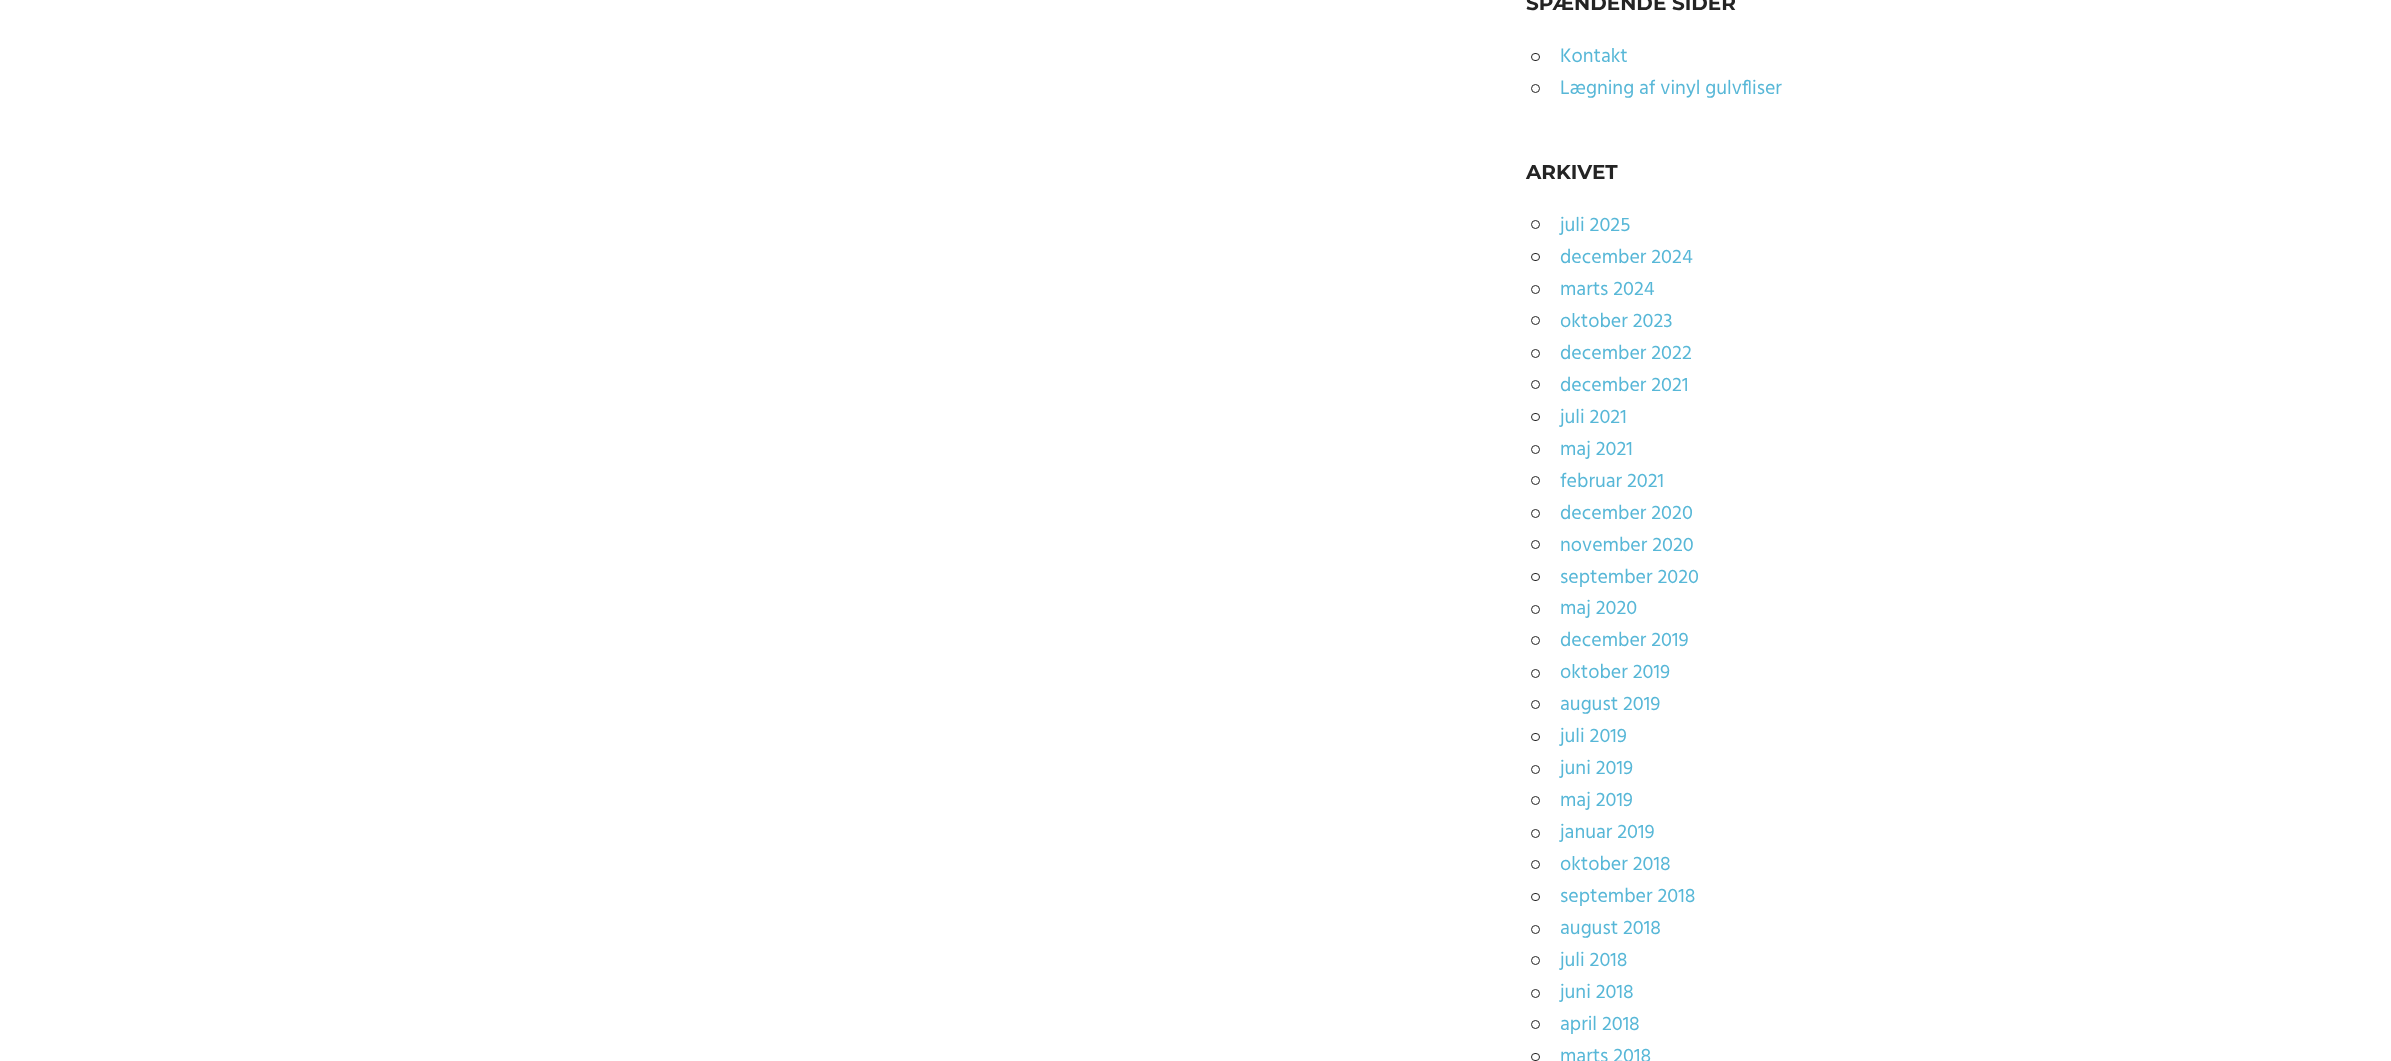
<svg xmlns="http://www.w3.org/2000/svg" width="2391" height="1061">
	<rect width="100%" height="100%" fill="#FFFFFF" />
	<text x="1526" y="10" font-family="Montserrat" font-size="20" font-weight="700" fill="#242424">SPÆNDENDE SIDER</text>
	<rect x="1531.5" y="53.5" width="8" height="7" rx="3.5" fill="none" stroke="#242424" />
	<text x="1560" y="62" font-family="Hind" font-size="20" fill="#57B7D7">Kontakt</text>
	<circle cx="1535.5" cy="88.5" r="4" fill="none" stroke="#242424" />
	<text x="1560" y="94" font-family="Hind" font-size="20" fill="#57B7D7">Lægning af vinyl gulvfliser</text>
	<text x="1526" y="179" font-family="Montserrat" font-size="20" font-weight="700" fill="#242424">ARKIVET</text>
	<circle cx="1535.5" cy="224.5" r="4" fill="none" stroke="#242424" />
	<text x="1560" y="231" font-family="Hind" font-size="20" fill="#57B7D7">juli 2025</text>
	<rect x="1531.5" y="253.5" width="8" height="7" rx="3.5" fill="none" stroke="#242424" />
	<text x="1560" y="263" font-family="Hind" font-size="20" fill="#57B7D7">december 2024</text>
	<circle cx="1535.5" cy="289.5" r="4" fill="none" stroke="#242424" />
	<text x="1560" y="295" font-family="Hind" font-size="20" fill="#57B7D7">marts 2024</text>
	<circle cx="1535.5" cy="320.5" r="4" fill="none" stroke="#242424" />
	<text x="1560" y="327" font-family="Hind" font-size="20" fill="#57B7D7">oktober 2023</text>
	<circle cx="1535.5" cy="353.5" r="4" fill="none" stroke="#242424" />
	<text x="1560" y="359" font-family="Hind" font-size="20" fill="#57B7D7">december 2022</text>
	<circle cx="1535.5" cy="384.5" r="4" fill="none" stroke="#242424" />
	<text x="1560" y="391" font-family="Hind" font-size="20" fill="#57B7D7">december 2021</text>
	<rect x="1531.5" y="413.5" width="8" height="7" rx="3.5" fill="none" stroke="#242424" />
	<text x="1560" y="423" font-family="Hind" font-size="20" fill="#57B7D7">juli 2021</text>
	<circle cx="1535.5" cy="449.5" r="4" fill="none" stroke="#242424" />
	<text x="1560" y="455" font-family="Hind" font-size="20" fill="#57B7D7">maj 2021</text>
	<circle cx="1535.5" cy="480.5" r="4" fill="none" stroke="#242424" />
	<text x="1560" y="487" font-family="Hind" font-size="20" fill="#57B7D7">februar 2021</text>
	<circle cx="1535.5" cy="513.5" r="4" fill="none" stroke="#242424" />
	<text x="1560" y="519" font-family="Hind" font-size="20" fill="#57B7D7">december 2020</text>
	<circle cx="1535.5" cy="544.5" r="4" fill="none" stroke="#242424" />
	<text x="1560" y="551" font-family="Hind" font-size="20" fill="#57B7D7">november 2020</text>
	<rect x="1531.5" y="573.5" width="8" height="7" rx="3.5" fill="none" stroke="#242424" />
	<text x="1560" y="583" font-family="Hind" font-size="20" fill="#57B7D7">september 2020</text>
	<circle cx="1535.5" cy="609.5" r="4" fill="none" stroke="#242424" />
	<text x="1560" y="614" font-family="Hind" font-size="20" fill="#57B7D7">maj 2020</text>
	<circle cx="1535.5" cy="640.5" r="4" fill="none" stroke="#242424" />
	<text x="1560" y="646" font-family="Hind" font-size="20" fill="#57B7D7">december 2019</text>
	<circle cx="1535.5" cy="673.5" r="4" fill="none" stroke="#242424" />
	<text x="1560" y="678" font-family="Hind" font-size="20" fill="#57B7D7">oktober 2019</text>
	<circle cx="1535.5" cy="704.5" r="4" fill="none" stroke="#242424" />
	<text x="1560" y="710" font-family="Hind" font-size="20" fill="#57B7D7">august 2019</text>
	<rect x="1531.5" y="733.5" width="8" height="7" rx="3.5" fill="none" stroke="#242424" />
	<text x="1560" y="742" font-family="Hind" font-size="20" fill="#57B7D7">juli 2019</text>
	<circle cx="1535.5" cy="769.5" r="4" fill="none" stroke="#242424" />
	<text x="1560" y="774" font-family="Hind" font-size="20" fill="#57B7D7">juni 2019</text>
	<circle cx="1535.5" cy="800.5" r="4" fill="none" stroke="#242424" />
	<text x="1560" y="806" font-family="Hind" font-size="20" fill="#57B7D7">maj 2019</text>
	<circle cx="1535.5" cy="833.5" r="4" fill="none" stroke="#242424" />
	<text x="1560" y="838" font-family="Hind" font-size="20" fill="#57B7D7">januar 2019</text>
	<circle cx="1535.5" cy="864.5" r="4" fill="none" stroke="#242424" />
	<text x="1560" y="870" font-family="Hind" font-size="20" fill="#57B7D7">oktober 2018</text>
	<rect x="1531.5" y="893.5" width="8" height="7" rx="3.5" fill="none" stroke="#242424" />
	<text x="1560" y="902" font-family="Hind" font-size="20" fill="#57B7D7">september 2018</text>
	<circle cx="1535.5" cy="929.5" r="4" fill="none" stroke="#242424" />
	<text x="1560" y="934" font-family="Hind" font-size="20" fill="#57B7D7">august 2018</text>
	<circle cx="1535.5" cy="960.5" r="4" fill="none" stroke="#242424" />
	<text x="1560" y="966" font-family="Hind" font-size="20" fill="#57B7D7">juli 2018</text>
	<circle cx="1535.5" cy="993.5" r="4" fill="none" stroke="#242424" />
	<text x="1560" y="998" font-family="Hind" font-size="20" fill="#57B7D7">juni 2018</text>
	<circle cx="1535.5" cy="1024.5" r="4" fill="none" stroke="#242424" />
	<text x="1560" y="1030" font-family="Hind" font-size="20" fill="#57B7D7">april 2018</text>
	<rect x="1531.5" y="1053.5" width="8" height="7" rx="3.5" fill="none" stroke="#242424" />
	<text x="1560" y="1062" font-family="Hind" font-size="20" fill="#57B7D7">marts 2018</text>
</svg>
